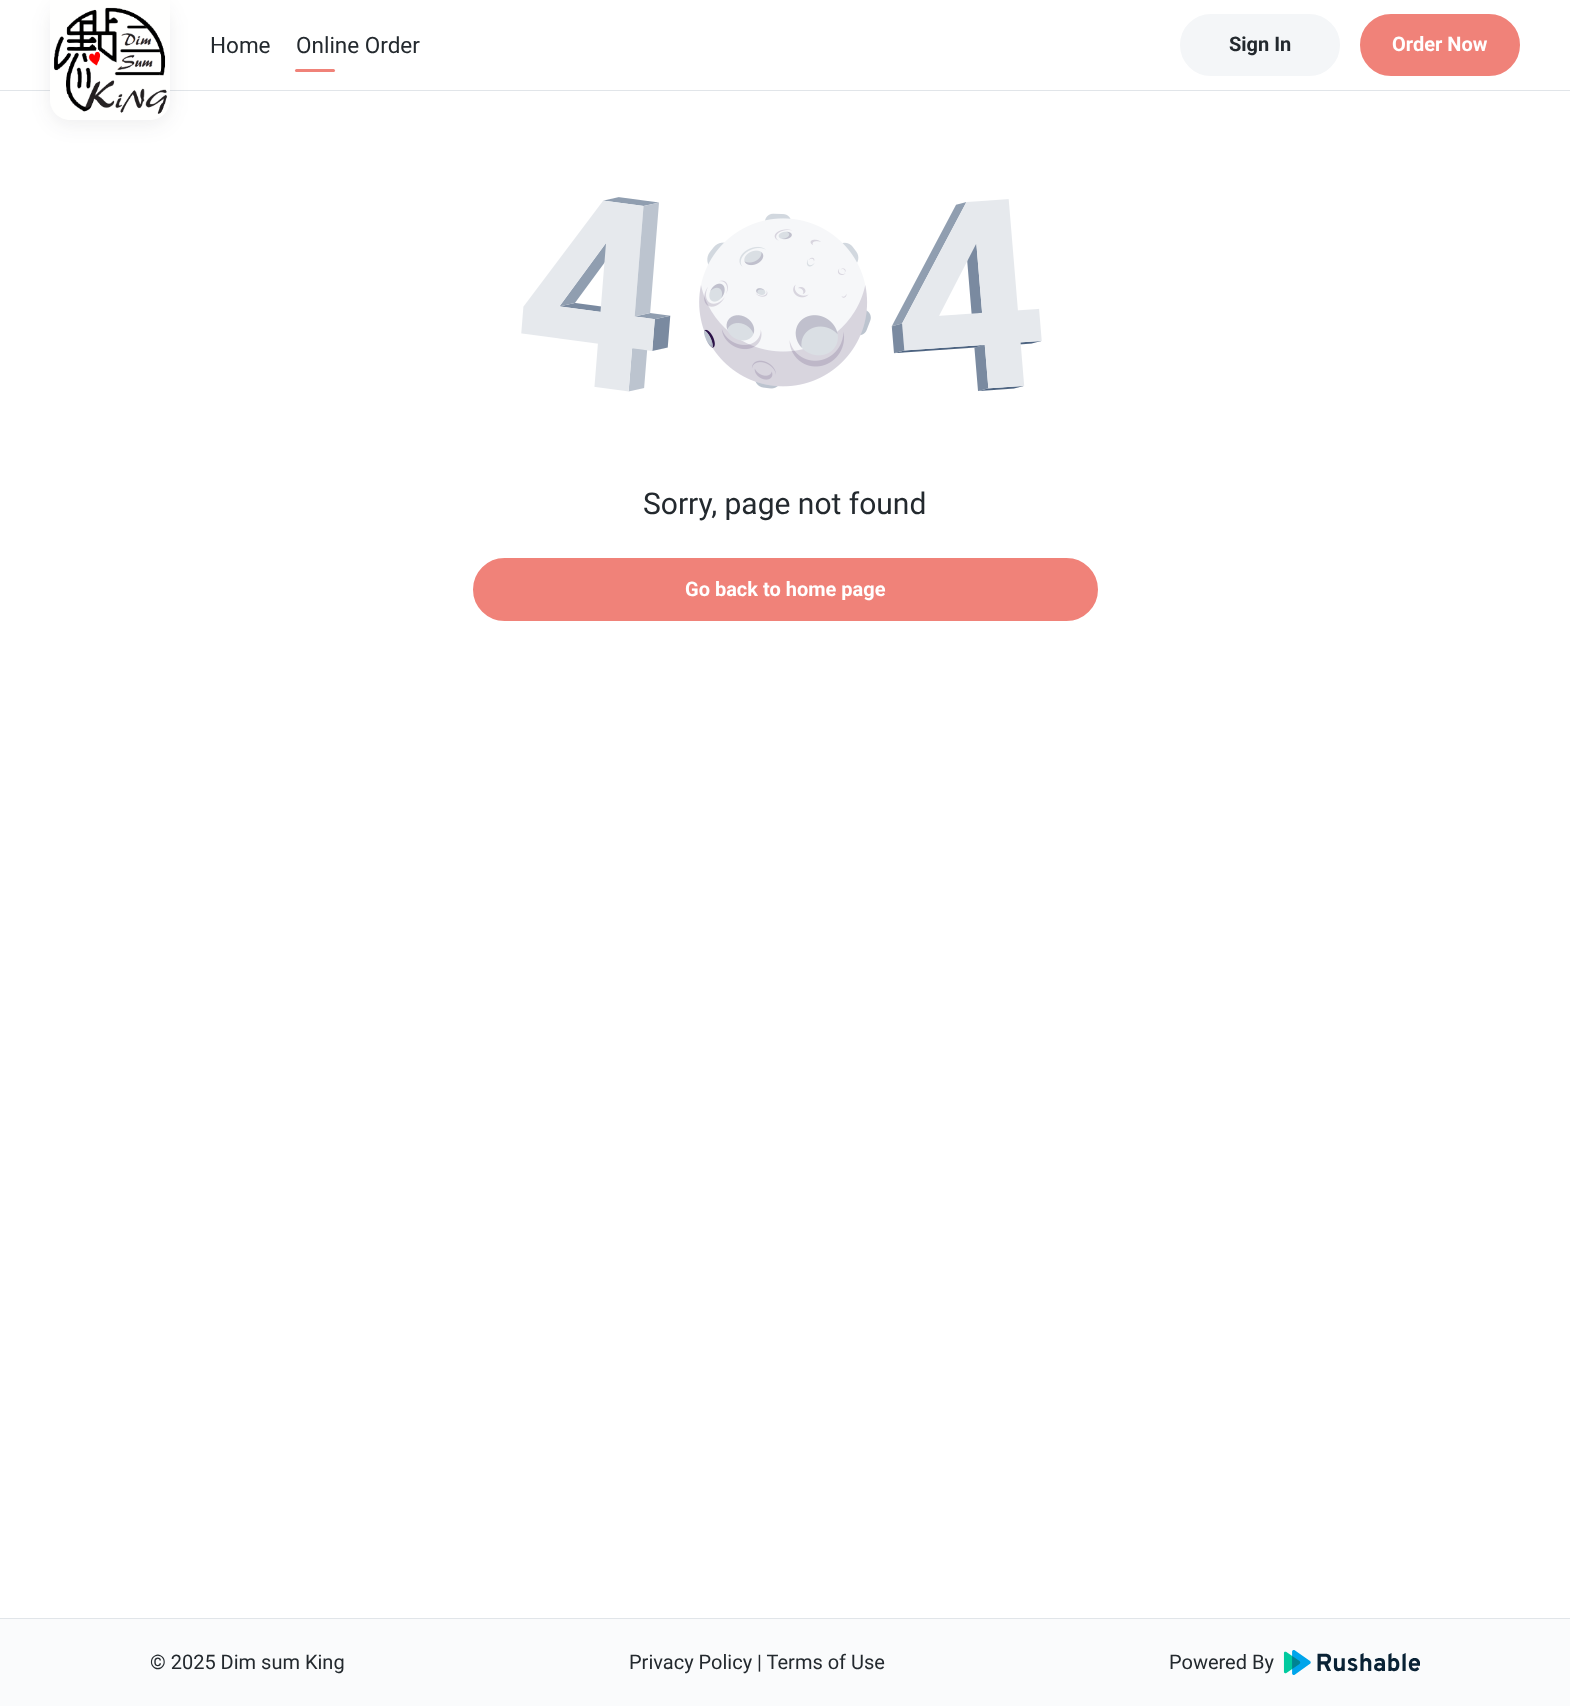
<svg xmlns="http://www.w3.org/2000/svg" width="1570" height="1707">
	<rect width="100%" height="100%" fill="#FFFFFF" />
	<rect x="0" y="90" width="1570" height="1" fill="#E1E5E9" />
	<rect x="50" y="5" width="120" height="120" rx="20" fill="#23292E" fill-opacity="0.08" filter="blur(10px)" />
	<path d="M50 0H170V100C170 111 161 120 150 120H70C59 120 50 111 50 100Z" fill="#FFFFFE" />
	<image x="53" y="7" width="115" height="107" href="assets/img1.png" />
	<g font-family="Roboto" font-size="22.5" fill="#23292E">
		<text x="210" y="53">Home</text>
		<text x="296" y="53">Online Order</text>
	</g>
	<rect x="295" y="69" width="40" height="3" rx="1.5" fill="#F08279" />
	<rect x="1181.5" y="15.5" width="157" height="59" rx="29.5" fill="#F4F6F8" stroke="#F4F6F8" stroke-width="3" />
	<text x="1229" y="51" font-family="Roboto" font-size="20" font-weight="700" fill="#23292E">Sign In</text>
	<rect x="1361.5" y="15.5" width="157" height="59" rx="29.5" fill="#F08279" stroke="#F08279" stroke-width="3" />
	<text x="1392" y="51" font-family="Roboto" font-size="20" font-weight="700" fill="#FFFFFF">Order Now</text>
	<image x="521" y="197" width="521" height="195" href="assets/img2.png" />
	<text x="643" y="514" font-family="Roboto" font-size="30" fill="#23292E">Sorry, page not found</text>
	<rect x="474.5" y="559.5" width="622" height="60" rx="30" fill="#F08279" stroke="#F08279" stroke-width="3" />
	<text x="685" y="596" font-family="Roboto" font-size="20" font-weight="700" fill="#FFFFFF">Go back to home page</text>
	<rect x="0" y="1619" width="1570" height="87" fill="#FAFBFC" />
	<rect x="0" y="1618" width="1570" height="1" fill="#E1E5E9" />
	<g font-family="Roboto" font-size="20" fill="#23292E">
		<text x="150" y="1669">© 2025 Dim sum King</text>
		<text x="629" y="1669">Privacy Policy | Terms of Use</text>
		<text x="1169" y="1669">Powered By</text>
	</g>
	<image x="1283" y="1650" width="137" height="25" href="assets/img3.png" />
</svg>
